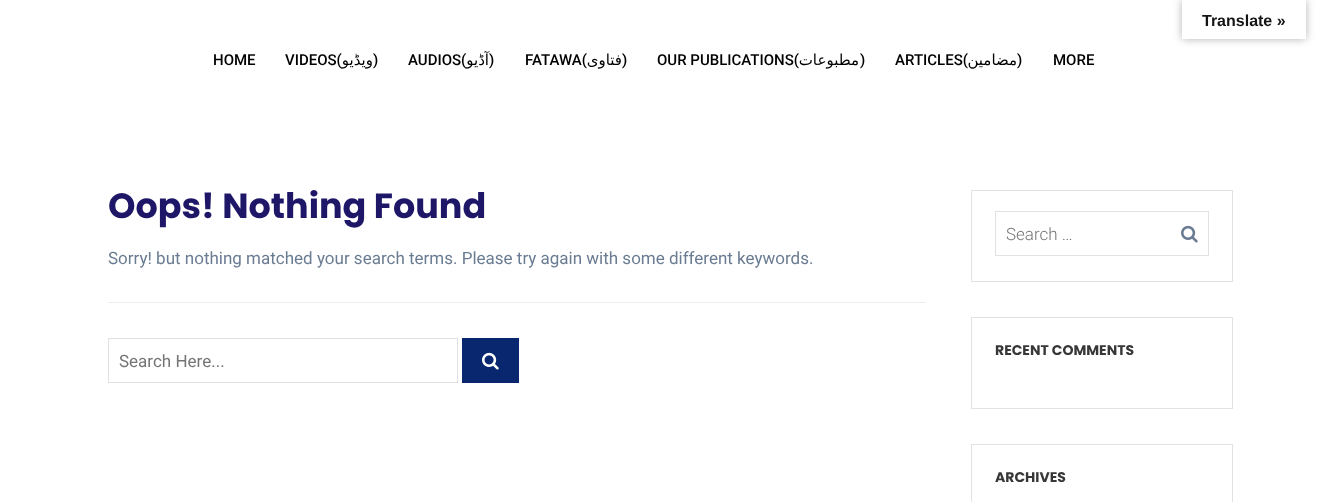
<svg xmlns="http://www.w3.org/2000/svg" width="1326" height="502">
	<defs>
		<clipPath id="clip1"><path d="M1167 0H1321V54H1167ZM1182 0H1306V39H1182Z" clip-rule="evenodd" /></clipPath>
	</defs>
	<rect width="100%" height="100%" fill="#FFFFFF" />
	<g clip-path="url(#clip1)">
		<rect x="1182" y="0" width="124" height="39" fill="#000000" fill-opacity="0.3" filter="blur(4.5px)" />
	</g>
	<text x="1202" y="26" font-family="Liberation Sans" font-size="16" font-weight="700" fill="#141414">Translate »</text>
	<g font-family="Roboto" font-size="15" font-weight="500" fill="#000000">
		<text x="213" y="65">HOME</text>
		<text x="285" y="65">VIDEOS(</text>
	</g>
	<text x="373" y="65" font-family="DejaVu Sans" font-size="15" direction="rtl" fill="#000000">ویڈیو</text>
	<g font-family="Roboto" font-size="15" font-weight="500" fill="#000000">
		<text x="373" y="65">)</text>
		<text x="408" y="65">AUDIOS(</text>
	</g>
	<text x="489" y="65" font-family="DejaVu Sans" font-size="15" direction="rtl" fill="#000000">آڈیو</text>
	<g font-family="Roboto" font-size="15" font-weight="500" fill="#000000">
		<text x="489" y="65">)</text>
		<text x="525" y="65">FATAWA(</text>
	</g>
	<text x="622" y="65" font-family="DejaVu Sans" font-size="15" direction="rtl" fill="#000000">فتاوی</text>
	<g font-family="Roboto" font-size="15" font-weight="500" fill="#000000">
		<text x="622" y="65">)</text>
		<text x="657" y="65">OUR PUBLICATIONS(</text>
	</g>
	<text x="859" y="65" font-family="DejaVu Sans" font-size="15" direction="rtl" fill="#000000">مطبوعات</text>
	<g font-family="Roboto" font-size="15" font-weight="500" fill="#000000">
		<text x="860" y="65">)</text>
		<text x="895" y="65">ARTICLES(</text>
	</g>
	<text x="1017" y="65" font-family="DejaVu Sans" font-size="15" direction="rtl" fill="#000000">مضامین</text>
	<g font-family="Roboto" font-size="15" font-weight="500" fill="#000000">
		<text x="1017" y="65">)</text>
		<text x="1053" y="65">MORE</text>
	</g>
	<rect x="108" y="302" width="818" height="1" fill="#EEEEEE" />
	<text x="108" y="218" font-family="Poppins" font-size="35" font-weight="700" fill="#1E1666">Oops! Nothing Found</text>
	<text x="108" y="264" font-family="Roboto" font-size="17" fill="#6A7C92">Sorry! but nothing matched your search terms. Please try again with some different keywords.</text>
	<rect x="108.5" y="338.5" width="349" height="44" fill="none" stroke="#E0E0E0" />
	<text x="119" y="367" font-family="Roboto" font-size="17" fill="#757575">Search Here...</text>
	<rect x="462" y="338" width="57" height="45" fill="#09276F" />
	<image x="482" y="352" width="17" height="18" href="assets/img1.png" />
	<rect x="971.5" y="190.5" width="261" height="91" fill="none" stroke="#E2E2E2" />
	<rect x="995.5" y="211.5" width="213" height="44" fill="none" stroke="#E2E2E2" />
	<text x="1006" y="240" font-family="Roboto" font-size="17" font-weight="300" fill="#757575">Search …</text>
	<image x="1181" y="225" width="17" height="18" href="assets/img2.png" />
	<rect x="971.5" y="317.5" width="261" height="91" fill="none" stroke="#E2E2E2" />
	<text x="995" y="355" font-family="Poppins" font-size="14" font-weight="700" fill="#373737">RECENT COMMENTS</text>
	<rect x="971.5" y="444.5" width="261" height="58" fill="none" stroke="#E2E2E2" />
	<text x="995" y="482" font-family="Poppins" font-size="14" font-weight="700" fill="#373737">ARCHIVES</text>
</svg>
